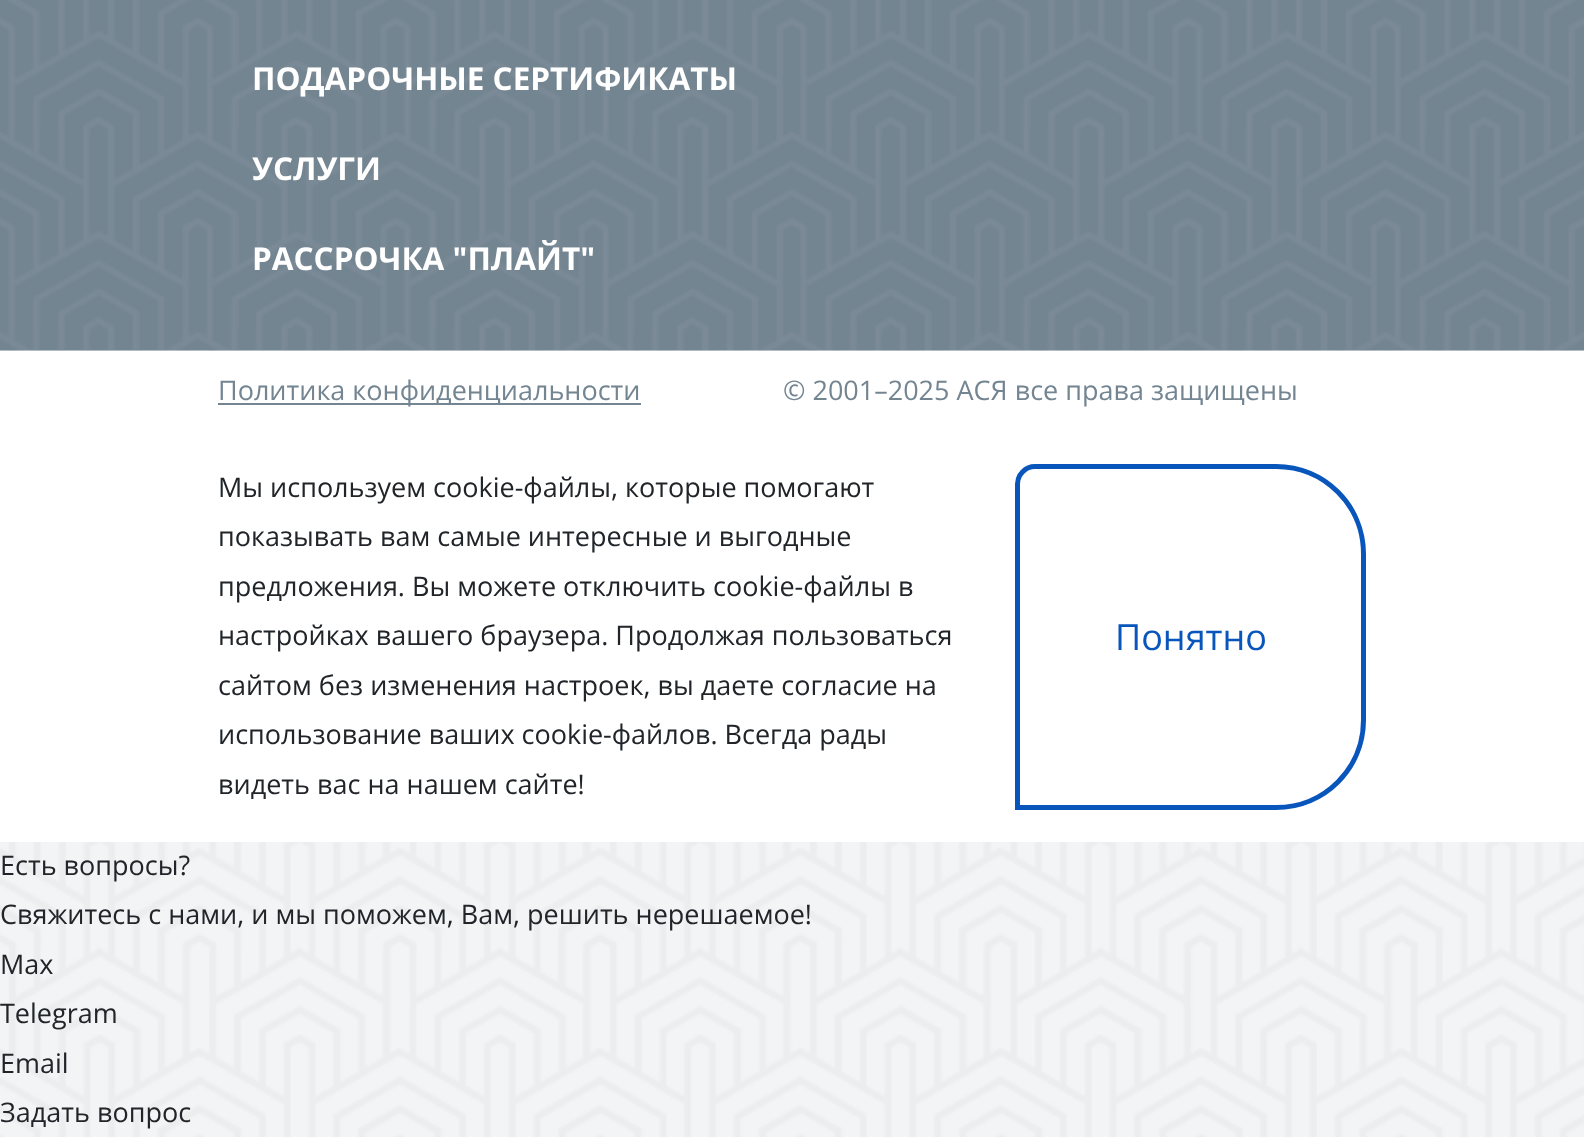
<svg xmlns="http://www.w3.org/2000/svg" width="1584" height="1137">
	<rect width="100%" height="100%" fill="#FFFFFF" />
	<image x="0" y="350" width="1584" height="787" href="assets/img1.png" />
	<image x="0" y="0" width="1584" height="351" href="assets/img2.png" />
	<g font-family="Open Sans" font-size="31.5" font-weight="700" fill="#FFFFFF">
		<text x="252" y="90">ПОДАРОЧНЫЕ СЕРТИФИКАТЫ</text>
		<text x="252" y="180">УСЛУГИ</text>
		<text x="252" y="270">РАССРОЧКА "ПЛАЙТ"</text>
	</g>
	<rect x="0" y="351" width="1584" height="491" fill="#FFFFFF" />
	<rect x="218" y="403" width="423" height="2" fill="#748592" />
	<g font-family="Open Sans" font-size="27" fill="#748592">
		<text x="218" y="400">Политика конфиденциальности</text>
		<text x="783" y="400">© 2001–2025 АСЯ все права защищены</text>
	</g>
	<g font-family="Open Sans" font-size="27" fill="#212529">
		<text x="218" y="497">Мы используем cookie-файлы, которые помогают</text>
		<text x="218" y="546">показывать вам самые интересные и выгодные</text>
		<text x="218" y="596">предложения. Вы можете отключить cookie-файлы в</text>
		<text x="218" y="645">настройках вашего браузера. Продолжая пользоваться</text>
		<text x="218" y="695">сайтом без изменения настроек, вы даете согласие на</text>
		<text x="218" y="744">использование ваших cookie-файлов. Всегда рады</text>
		<text x="218" y="794">видеть вас на нашем сайте!</text>
	</g>
	<path d="M1035 466.5H1276C1324.5 466.5 1363.5 505.5 1363.5 554V720C1363.5 768.5 1324.5 807.5 1276 807.5H1017.5V484C1017.5 474.5 1025.5 466.5 1035 466.5Z" fill="none" stroke="#0855BB" stroke-width="5" />
	<text x="1115" y="650" font-family="Open Sans" font-size="36" fill="#0855BB">Понятно</text>
	<g font-family="Open Sans" font-size="27" fill="#212529">
		<text x="0" y="875">Есть вопросы?</text>
		<text x="0" y="924">Свяжитесь с нами, и мы поможем, Вам, решить нерешаемое!</text>
		<text x="0" y="974">Max</text>
		<text x="0" y="1023">Telegram</text>
		<text x="0" y="1073">Email</text>
		<text x="0" y="1122">Задать вопрос</text>
	</g>
</svg>
